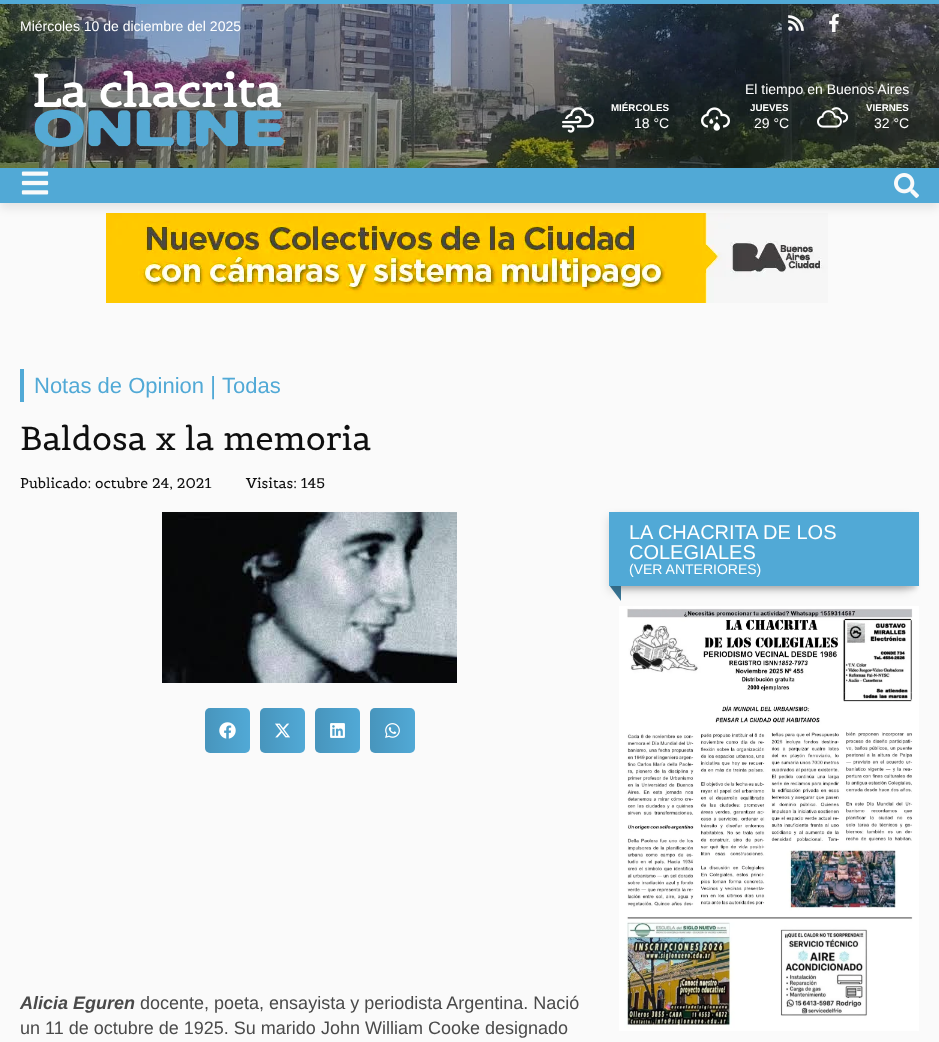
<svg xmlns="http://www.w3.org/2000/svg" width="939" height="1042">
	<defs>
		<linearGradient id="g1" gradientUnits="userSpaceOnUse" x1="205" y1="731" x2="250" y2="731"><stop offset="0" stop-color="#000000" stop-opacity="0.12" /><stop offset="1" stop-color="#000000" stop-opacity="0" /></linearGradient>
		<linearGradient id="g2" gradientUnits="userSpaceOnUse" x1="260" y1="731" x2="305" y2="731"><stop offset="0" stop-color="#000000" stop-opacity="0.12" /><stop offset="1" stop-color="#000000" stop-opacity="0" /></linearGradient>
		<linearGradient id="g3" gradientUnits="userSpaceOnUse" x1="315" y1="731" x2="360" y2="731"><stop offset="0" stop-color="#000000" stop-opacity="0.12" /><stop offset="1" stop-color="#000000" stop-opacity="0" /></linearGradient>
		<linearGradient id="g4" gradientUnits="userSpaceOnUse" x1="370" y1="731" x2="415" y2="731"><stop offset="0" stop-color="#000000" stop-opacity="0.12" /><stop offset="1" stop-color="#000000" stop-opacity="0" /></linearGradient>
	</defs>
	<rect width="100%" height="100%" fill="#FAFAFA" />
	<image x="0" y="4" width="939" height="164" href="assets/img1.png" />
	<rect x="0" y="0" width="939" height="4" fill="#51A9D6" />
	<text x="20" y="31" font-family="Liberation Sans" font-size="14" fill="#FFFFFF">Miércoles 10 de diciembre del 2025</text>
	<image x="788" y="15" width="16" height="16" href="assets/img2.png" />
	<image x="829" y="14" width="10" height="18" href="assets/img3.png" />
	<image x="34" y="70" width="250" height="77" href="assets/img4.png" />
	<text x="745" y="94" font-family="Liberation Sans" font-size="14" fill="#FFFFFF">El tiempo en Buenos Aires</text>
	<image x="562" y="107" width="32" height="26" href="assets/img5.png" />
	<text x="611" y="111" font-family="Liberation Sans" font-size="9.75" font-weight="700" fill="#FFFFFF">MIÉRCOLES</text>
	<text x="634" y="128" font-family="Liberation Sans" font-size="14" fill="#FFFFFF">18 °C</text>
	<image x="701" y="107" width="29" height="24" href="assets/img6.png" />
	<text x="750" y="111" font-family="Liberation Sans" font-size="9.75" font-weight="700" fill="#FFFFFF">JUEVES</text>
	<text x="754" y="128" font-family="Liberation Sans" font-size="14" fill="#FFFFFF">29 °C</text>
	<image x="817" y="107" width="32" height="21" href="assets/img7.png" />
	<text x="866" y="111" font-family="Liberation Sans" font-size="9.75" font-weight="700" fill="#FFFFFF">VIERNES</text>
	<text x="874" y="128" font-family="Liberation Sans" font-size="14" fill="#FFFFFF">32 °C</text>
	<image x="106" y="213" width="722" height="90" href="assets/img10.png" />
	<rect x="0" y="173" width="939" height="35" fill="#000000" fill-opacity="0.09" filter="blur(5px)" />
	<rect x="0" y="168" width="939" height="35" fill="#51A9D6" />
	<image x="21" y="171" width="28" height="24" href="assets/img8.png" />
	<image x="894" y="173" width="25" height="25" href="assets/img9.png" />
	<rect x="20" y="369" width="4" height="33" fill="#51A9D6" />
	<text x="34" y="393" font-family="Liberation Sans" font-size="22" fill="#51A9D6">Notas de Opinion</text>
	<text x="210" y="393" font-family="Belgrano" font-size="22" fill="#51A9D6">|</text>
	<text x="222" y="393" font-family="Liberation Sans" font-size="22" fill="#51A9D6">Todas</text>
	<text x="20" y="450" font-family="Belgrano" font-size="33" fill="#0F0F0F">Baldosa x la memoria</text>
	<g font-family="Belgrano" font-size="14" fill="#0F0F0F">
		<text x="20" y="488">Publicado: octubre 24, 2021</text>
		<text x="246" y="488">Visitas: 145</text>
	</g>
	<rect x="616" y="515" width="300" height="74" fill="#000000" fill-opacity="0.2" filter="blur(2.5px)" />
	<path d="M621 527V601L609 585V547Z" fill="#397696" />
	<image x="619" y="606" width="300" height="425" href="assets/img11.png" />
	<rect x="609" y="517" width="300" height="74" fill="#000000" fill-opacity="0.14" filter="blur(5px)" />
	<rect x="609" y="512" width="310" height="74" fill="#51A9D6" />
	<g font-family="Liberation Sans" font-size="20" fill="#FFFFFF">
		<text x="629" y="539">LA CHACRITA DE LOS</text>
		<text x="629" y="559">COLEGIALES</text>
	</g>
	<text x="629" y="574" font-family="Liberation Sans" font-size="14" fill="#FFFFFF">(VER ANTERIORES)</text>
	<image x="162" y="512" width="295" height="171" href="assets/img12.png" />
	<rect x="205" y="708" width="45" height="45" rx="5" fill="#51A9D6" />
	<rect x="205" y="708" width="45" height="45" rx="5" fill="url(#g1)" />
	<image x="219" y="722" width="17" height="17" href="assets/img13.png" />
	<rect x="260" y="708" width="45" height="45" rx="5" fill="#51A9D6" />
	<rect x="260" y="708" width="45" height="45" rx="5" fill="url(#g2)" />
	<image x="275" y="723" width="15" height="15" href="assets/img14.png" />
	<rect x="315" y="708" width="45" height="45" rx="5" fill="#51A9D6" />
	<rect x="315" y="708" width="45" height="45" rx="5" fill="url(#g3)" />
	<image x="330" y="723" width="15" height="15" href="assets/img15.png" />
	<rect x="370" y="708" width="45" height="45" rx="5" fill="#51A9D6" />
	<rect x="370" y="708" width="45" height="45" rx="5" fill="url(#g4)" />
	<image x="385" y="723" width="15" height="15" href="assets/img16.png" />
	<text x="20" y="1009" font-family="Liberation Sans" font-size="18" font-weight="700" font-style="italic" fill="#4A4A4A">Alicia Eguren</text>
	<g font-family="Liberation Sans" font-size="18" fill="#4A4A4A">
		<text x="140" y="1009">docente, poeta, ensayista y periodista Argentina. Nació</text>
		<text x="20" y="1034">un 11 de octubre de 1925. Su marido John William Cooke designado</text>
	</g>
</svg>
